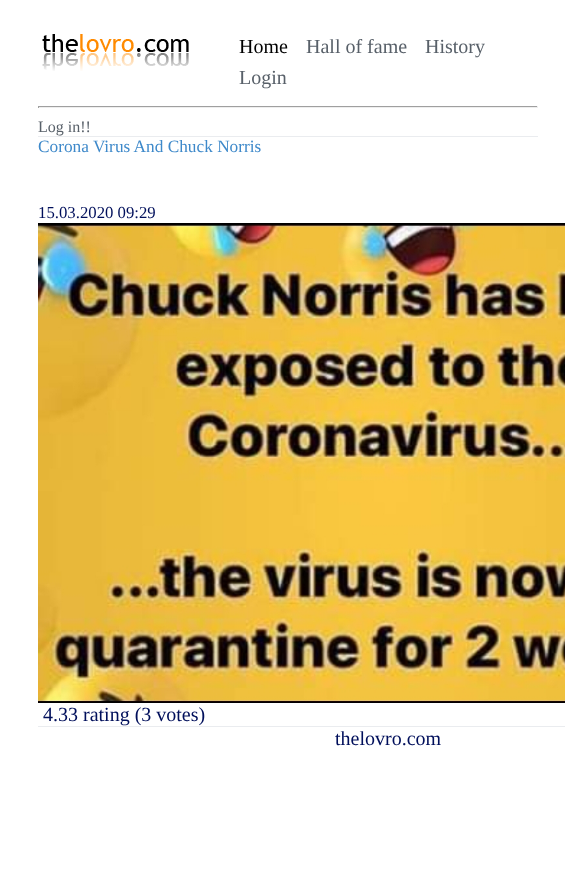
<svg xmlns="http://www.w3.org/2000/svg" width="565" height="884">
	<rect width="100%" height="100%" fill="#FFFFFF" />
	<rect x="38" y="136" width="500" height="1" fill="#EAECEF" />
	<image x="42" y="34" width="147" height="37" href="assets/img1.png" />
	<text x="239" y="53" font-family="Liberation Serif" font-size="20" fill="#000000">Home</text>
	<g font-family="Liberation Serif" font-size="20" fill="#586069">
		<text x="306" y="53">Hall of fame</text>
		<text x="425" y="53">History</text>
		<text x="239" y="84">Login</text>
	</g>
	<rect x="38" y="106" width="500" height="1" fill="#9F9F9F" />
	<rect x="537" y="106" width="1" height="2" fill="#EEEEEE" />
	<rect x="38" y="107" width="500" height="1" fill="#EEEEEE" />
	<rect x="38" y="106" width="1" height="2" fill="#9F9F9F" />
	<text x="38" y="132" font-family="Liberation Serif" font-size="16" fill="#586069">Log in!!</text>
	<text x="38" y="152" font-family="Liberation Serif" font-size="17.3" fill="#3E89CA">Corona Virus And Chuck Norris</text>
	<text x="38" y="218" font-family="Liberation Serif" font-size="16.75" fill="#000F5B">15.03.2020 09:29</text>
	<image x="38" y="223" width="527" height="480" href="assets/img2.png" />
	<text x="43" y="721" font-family="Liberation Serif" font-size="20" fill="#000F5B">4.33 rating (3 votes)</text>
	<rect x="38" y="726" width="527" height="1" fill="#EAECEF" />
	<text x="335" y="745" font-family="Liberation Serif" font-size="20" fill="#000F5B">thelovro.com</text>
</svg>
